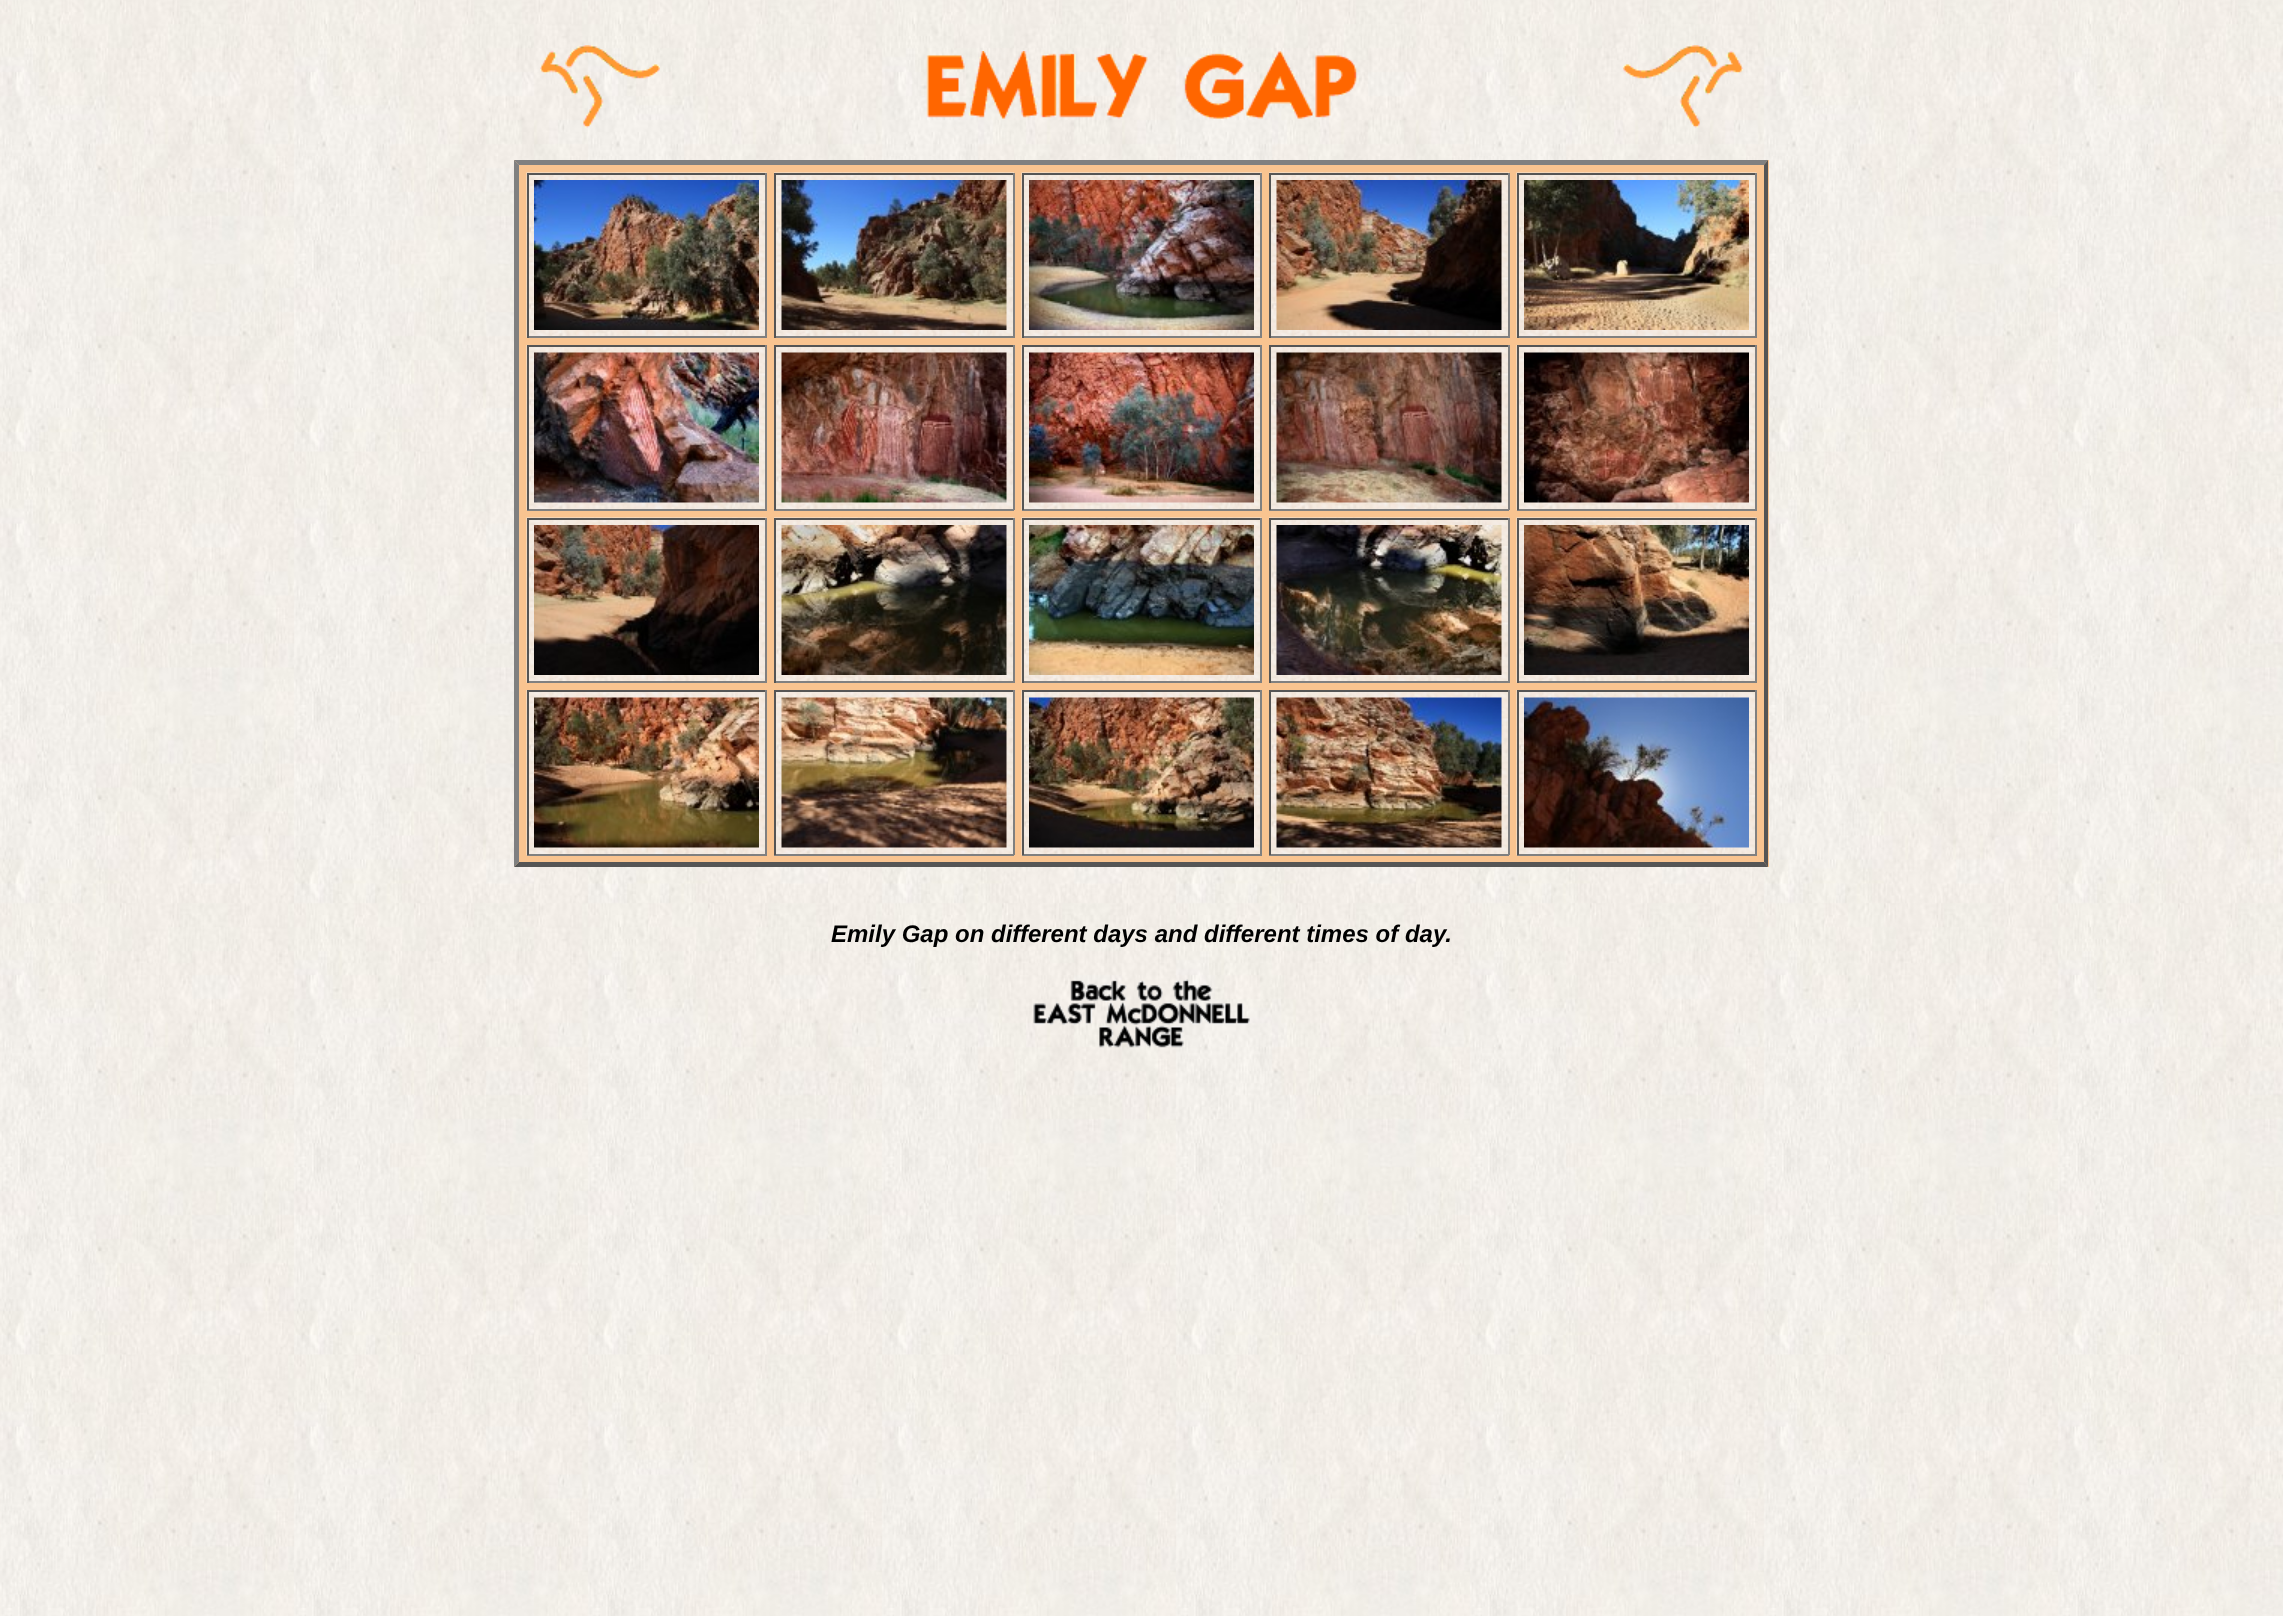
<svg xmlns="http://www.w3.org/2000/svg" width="2283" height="1616">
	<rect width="100%" height="100%" fill="#FFFFFF" />
	<image x="0" y="0" width="2283" height="1616" href="assets/img1.png" />
	<image x="540" y="45" width="120" height="83" href="assets/img2.png" />
	<image x="926" y="51" width="431" height="68" href="assets/img3.png" />
	<image x="1623" y="45" width="120" height="83" href="assets/img4.png" />
	<rect x="514" y="160" width="1255" height="707" fill="#F9C490" />
	<path d="M514 160H1768L1764 165H519Z" fill="#808080" />
	<path d="M1768 160V867L1764 862V165Z" fill="#555555" />
	<path d="M1768 867H514L519 862H1764Z" fill="#555555" />
	<path d="M514 867V160L519 165V862Z" fill="#808080" />
	<image x="526" y="172" width="241" height="166" href="assets/img5.png" />
	<rect x="527" y="173" width="240" height="2" fill="#555555" />
	<rect x="765" y="173" width="2" height="165" fill="#808080" />
	<rect x="527" y="336" width="240" height="2" fill="#808080" />
	<rect x="527" y="173" width="2" height="165" fill="#555555" />
	<image x="534" y="180" width="225" height="150" href="assets/img6.png" />
	<image x="774" y="172" width="240" height="164" href="assets/img7.png" />
	<rect x="774" y="173" width="240" height="2" fill="#555555" />
	<rect x="1013" y="173" width="2" height="165" fill="#808080" />
	<rect x="774" y="336" width="240" height="2" fill="#808080" />
	<rect x="774" y="173" width="2" height="165" fill="#555555" />
	<image x="781" y="180" width="226" height="150" href="assets/img8.png" />
	<image x="1021" y="172" width="241" height="166" href="assets/img5.png" />
	<rect x="1022" y="173" width="240" height="2" fill="#555555" />
	<rect x="1260" y="173" width="2" height="165" fill="#808080" />
	<rect x="1022" y="336" width="240" height="2" fill="#808080" />
	<rect x="1022" y="173" width="2" height="165" fill="#555555" />
	<image x="1029" y="180" width="225" height="150" href="assets/img9.png" />
	<image x="1269" y="172" width="240" height="164" href="assets/img10.png" />
	<rect x="1269" y="173" width="240" height="2" fill="#555555" />
	<rect x="1508" y="173" width="2" height="165" fill="#808080" />
	<rect x="1269" y="336" width="240" height="2" fill="#808080" />
	<rect x="1269" y="173" width="2" height="165" fill="#555555" />
	<image x="1276" y="180" width="226" height="150" href="assets/img11.png" />
	<image x="1516" y="172" width="241" height="166" href="assets/img5.png" />
	<rect x="1517" y="173" width="240" height="2" fill="#555555" />
	<rect x="1755" y="173" width="2" height="165" fill="#808080" />
	<rect x="1517" y="336" width="240" height="2" fill="#808080" />
	<rect x="1517" y="173" width="2" height="165" fill="#555555" />
	<image x="1524" y="180" width="225" height="150" href="assets/img12.png" />
	<image x="526" y="345" width="239" height="165" href="assets/img13.png" />
	<rect x="527" y="345" width="240" height="2" fill="#555555" />
	<rect x="765" y="345" width="2" height="165" fill="#808080" />
	<rect x="527" y="509" width="240" height="2" fill="#808080" />
	<rect x="527" y="345" width="2" height="165" fill="#555555" />
	<image x="534" y="352" width="225" height="151" href="assets/img14.png" />
	<image x="776" y="347" width="237" height="162" href="assets/img15.png" />
	<rect x="774" y="345" width="240" height="2" fill="#555555" />
	<rect x="1013" y="345" width="2" height="165" fill="#808080" />
	<rect x="774" y="509" width="240" height="2" fill="#808080" />
	<rect x="774" y="345" width="2" height="165" fill="#555555" />
	<image x="781" y="352" width="226" height="151" href="assets/img16.png" />
	<image x="1021" y="345" width="239" height="165" href="assets/img13.png" />
	<rect x="1022" y="345" width="240" height="2" fill="#555555" />
	<rect x="1260" y="345" width="2" height="165" fill="#808080" />
	<rect x="1022" y="509" width="240" height="2" fill="#808080" />
	<rect x="1022" y="345" width="2" height="165" fill="#555555" />
	<image x="1029" y="352" width="225" height="151" href="assets/img17.png" />
	<image x="1271" y="347" width="237" height="162" href="assets/img15.png" />
	<rect x="1269" y="345" width="240" height="2" fill="#555555" />
	<rect x="1508" y="345" width="2" height="165" fill="#808080" />
	<rect x="1269" y="509" width="240" height="2" fill="#808080" />
	<rect x="1269" y="345" width="2" height="165" fill="#555555" />
	<image x="1276" y="352" width="226" height="151" href="assets/img18.png" />
	<image x="1516" y="345" width="239" height="165" href="assets/img13.png" />
	<rect x="1517" y="345" width="240" height="2" fill="#555555" />
	<rect x="1755" y="345" width="2" height="165" fill="#808080" />
	<rect x="1517" y="509" width="240" height="2" fill="#808080" />
	<rect x="1517" y="345" width="2" height="165" fill="#555555" />
	<image x="1524" y="352" width="225" height="151" href="assets/img19.png" />
	<image x="526" y="517" width="241" height="166" href="assets/img5.png" />
	<rect x="527" y="518" width="240" height="2" fill="#555555" />
	<rect x="765" y="518" width="2" height="165" fill="#808080" />
	<rect x="527" y="681" width="240" height="2" fill="#808080" />
	<rect x="527" y="518" width="2" height="165" fill="#555555" />
	<image x="534" y="525" width="225" height="150" href="assets/img20.png" />
	<image x="774" y="517" width="240" height="164" href="assets/img7.png" />
	<rect x="774" y="518" width="240" height="2" fill="#555555" />
	<rect x="1013" y="518" width="2" height="165" fill="#808080" />
	<rect x="774" y="681" width="240" height="2" fill="#808080" />
	<rect x="774" y="518" width="2" height="165" fill="#555555" />
	<image x="781" y="525" width="226" height="150" href="assets/img21.png" />
	<image x="1021" y="517" width="241" height="166" href="assets/img5.png" />
	<rect x="1022" y="518" width="240" height="2" fill="#555555" />
	<rect x="1260" y="518" width="2" height="165" fill="#808080" />
	<rect x="1022" y="681" width="240" height="2" fill="#808080" />
	<rect x="1022" y="518" width="2" height="165" fill="#555555" />
	<image x="1029" y="525" width="225" height="150" href="assets/img22.png" />
	<image x="1269" y="517" width="240" height="164" href="assets/img10.png" />
	<rect x="1269" y="518" width="240" height="2" fill="#555555" />
	<rect x="1508" y="518" width="2" height="165" fill="#808080" />
	<rect x="1269" y="681" width="240" height="2" fill="#808080" />
	<rect x="1269" y="518" width="2" height="165" fill="#555555" />
	<image x="1276" y="525" width="226" height="150" href="assets/img23.png" />
	<image x="1516" y="517" width="241" height="166" href="assets/img5.png" />
	<rect x="1517" y="518" width="240" height="2" fill="#555555" />
	<rect x="1755" y="518" width="2" height="165" fill="#808080" />
	<rect x="1517" y="681" width="240" height="2" fill="#808080" />
	<rect x="1517" y="518" width="2" height="165" fill="#555555" />
	<image x="1524" y="525" width="225" height="150" href="assets/img24.png" />
	<image x="526" y="690" width="239" height="165" href="assets/img25.png" />
	<rect x="527" y="690" width="240" height="2" fill="#555555" />
	<rect x="765" y="690" width="2" height="165" fill="#808080" />
	<rect x="527" y="854" width="240" height="2" fill="#808080" />
	<rect x="527" y="690" width="2" height="165" fill="#555555" />
	<image x="534" y="697" width="225" height="151" href="assets/img26.png" />
	<image x="776" y="692" width="237" height="162" href="assets/img27.png" />
	<rect x="774" y="690" width="240" height="2" fill="#555555" />
	<rect x="1013" y="690" width="2" height="165" fill="#808080" />
	<rect x="774" y="854" width="240" height="2" fill="#808080" />
	<rect x="774" y="690" width="2" height="165" fill="#555555" />
	<image x="781" y="697" width="226" height="151" href="assets/img28.png" />
	<image x="1021" y="690" width="239" height="165" href="assets/img25.png" />
	<rect x="1022" y="690" width="240" height="2" fill="#555555" />
	<rect x="1260" y="690" width="2" height="165" fill="#808080" />
	<rect x="1022" y="854" width="240" height="2" fill="#808080" />
	<rect x="1022" y="690" width="2" height="165" fill="#555555" />
	<image x="1029" y="697" width="225" height="151" href="assets/img29.png" />
	<image x="1271" y="692" width="237" height="162" href="assets/img27.png" />
	<rect x="1269" y="690" width="240" height="2" fill="#555555" />
	<rect x="1508" y="690" width="2" height="165" fill="#808080" />
	<rect x="1269" y="854" width="240" height="2" fill="#808080" />
	<rect x="1269" y="690" width="2" height="165" fill="#555555" />
	<image x="1276" y="697" width="226" height="151" href="assets/img30.png" />
	<image x="1516" y="690" width="239" height="165" href="assets/img25.png" />
	<rect x="1517" y="690" width="240" height="2" fill="#555555" />
	<rect x="1755" y="690" width="2" height="165" fill="#808080" />
	<rect x="1517" y="854" width="240" height="2" fill="#808080" />
	<rect x="1517" y="690" width="2" height="165" fill="#555555" />
	<image x="1524" y="697" width="225" height="151" href="assets/img31.png" />
	<text x="831" y="942" font-family="Liberation Sans" font-size="24" font-weight="700" font-style="italic" fill="#000000">Emily Gap on different days and different times of day.</text>
	<image x="1033" y="979" width="217" height="69" href="assets/img32.png" />
</svg>
